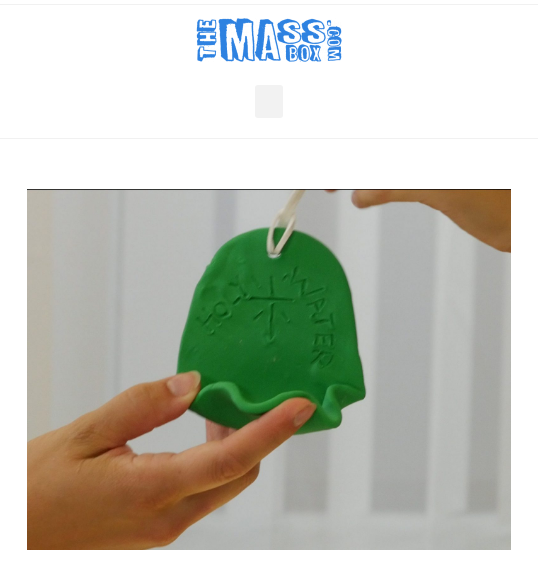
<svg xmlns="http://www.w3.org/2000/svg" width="538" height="570">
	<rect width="100%" height="100%" fill="#FFFFFF" />
	<rect x="0" y="4" width="538" height="1" fill="#F1F1F1" />
	<rect x="0" y="138" width="538" height="1" fill="#F1F1F1" />
	<image x="196" y="18" width="146" height="44" href="assets/img1.png" />
	<rect x="255" y="85" width="28" height="33" rx="3" fill="#F2F2F2" />
	<image x="27" y="189" width="484" height="361" href="assets/img2.png" />
</svg>
